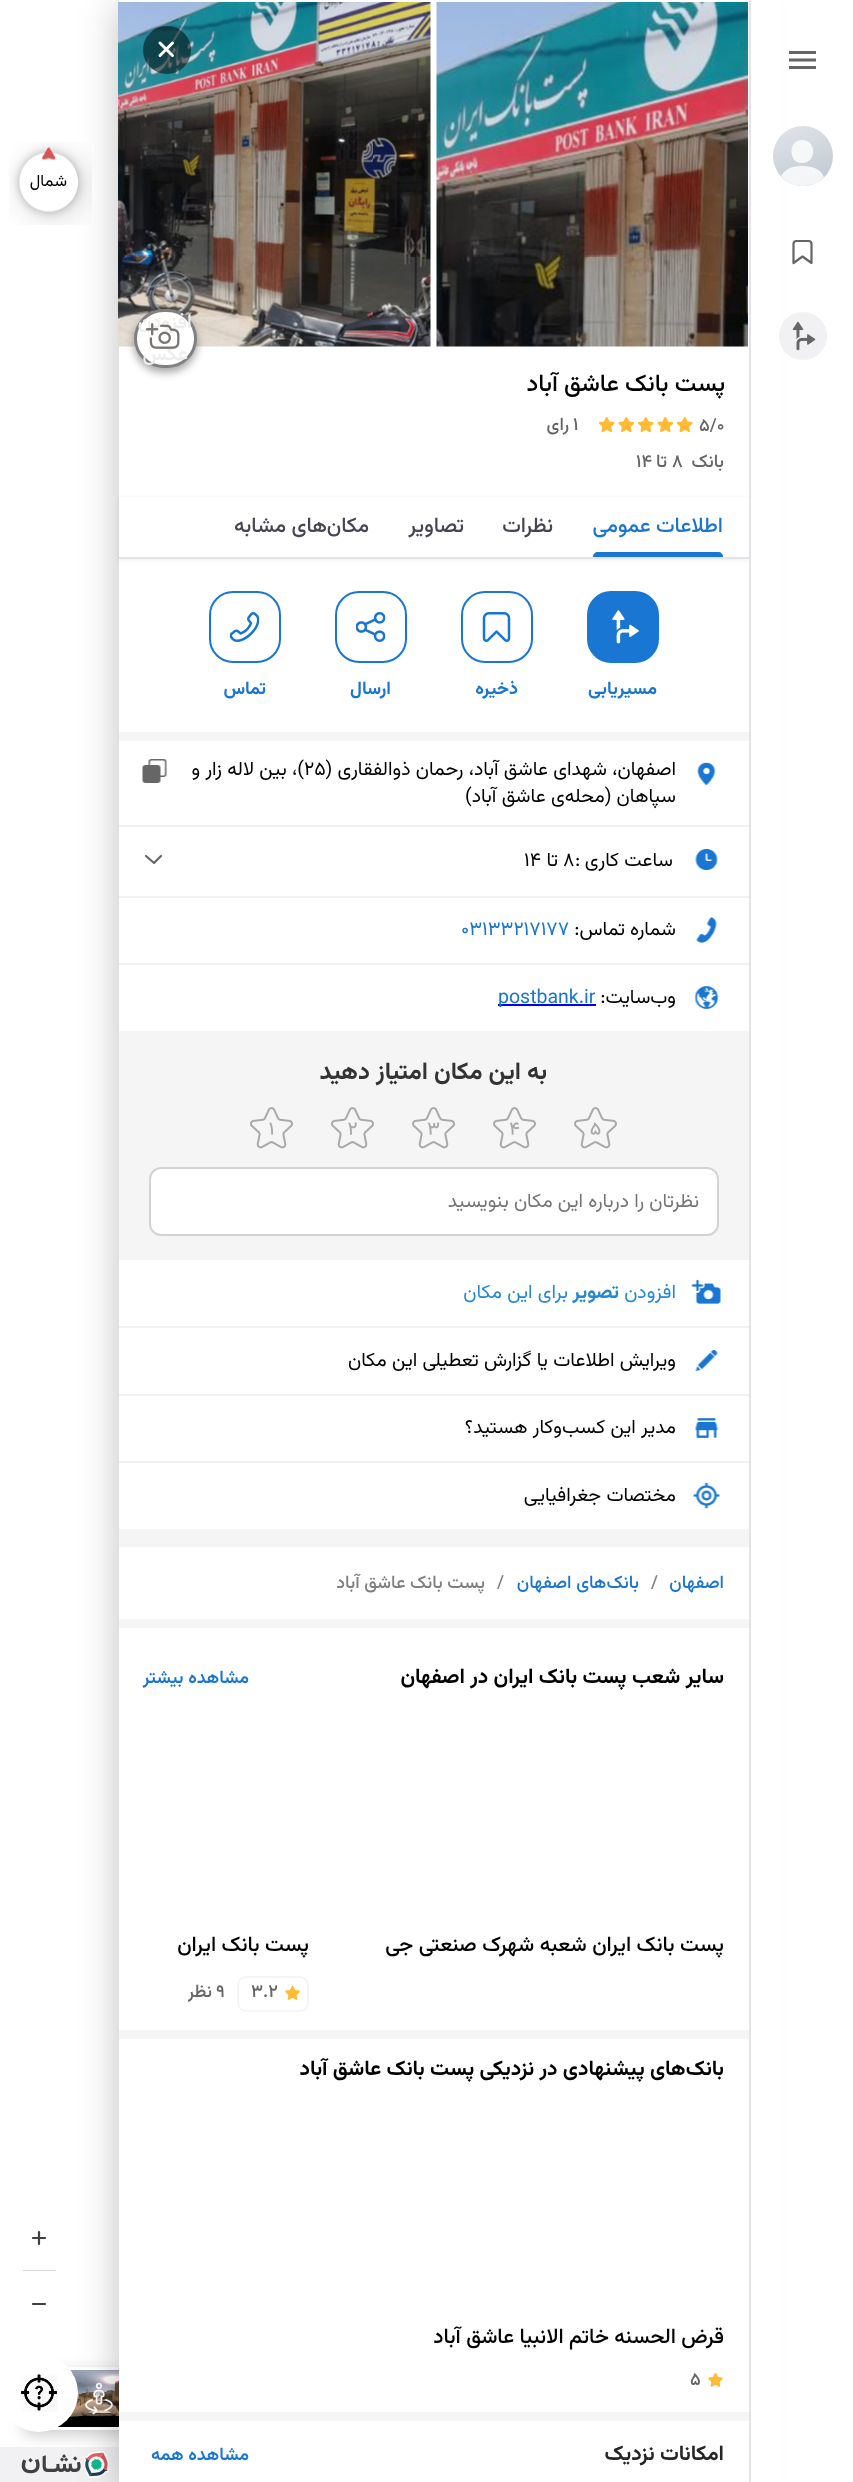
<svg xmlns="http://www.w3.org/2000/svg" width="853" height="2482">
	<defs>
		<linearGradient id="g1" gradientUnits="userSpaceOnUse" x1="794" y1="129" x2="815" y2="186"><stop offset="0" stop-color="#DCE1E6" /><stop offset="1" stop-color="#C1CAD2" /></linearGradient>
		<clipPath id="clip1"><rect x="188" y="1980" width="37" height="27" /></clipPath>
	</defs>
	<rect width="100%" height="100%" fill="#FFFFFF" />
	<image x="9" y="142" width="83" height="83" href="assets/img3.png" />
	<rect x="24" y="2372" width="150" height="63" rx="6" fill="#000000" fill-opacity="0.2" filter="blur(7.5px)" />
	<rect x="24" y="2367" width="150" height="63" rx="6" fill="#FFFFFF" />
	<image x="58" y="2370" width="61" height="57" href="assets/img5.png" />
	<circle cx="39" cy="2393" r="39" fill="#FFFFFF" />
	<image x="85" y="2382" width="28" height="33" href="assets/img6.png" />
	<rect x="0" y="2447" width="119" height="35" fill="#F1F1F3" />
	<image x="21" y="2451" width="89" height="27" href="assets/img31.png" />
	<rect x="119" y="6" width="630" height="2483" fill="#000000" fill-opacity="0.25" filter="blur(19px)" />
	<rect x="119" y="0" width="630" height="2482" fill="#FFFFFF" />
	<rect x="119" y="498" width="630" height="62" fill="#000000" fill-opacity="0.07" filter="blur(2px)" />
	<rect x="751" y="0" width="31" height="2482" fill="#FFFFFF" />
	<rect x="749" y="0" width="2" height="2482" fill="#E3E3E8" />
	<image x="789" y="51" width="27" height="18" href="assets/img1.png" />
	<circle cx="803" cy="156" r="30" fill="url(#g1)" />
	<path d="M802 166C790 166 785 170 781 176C792 189 813 189 824 177C821 170 815 166 802 166ZM802 163C817 163 817 140 802 140C788 140 788 163 802 163Z" fill="#FFFFFF" fill-opacity="0.8" fill-rule="evenodd" />
	<path d="M802.5 256.5L793.5 263V244C793.5 242 795 241 796.5 241H808.5C810 241 811.5 242 811.5 244V263Z" fill="none" stroke="#666666" stroke-width="2.2" stroke-linejoin="round" />
	<circle cx="803" cy="336" r="24" fill="#F1F1F3" />
	<image x="792" y="321" width="24" height="30" href="assets/img2.png" />
	<text x="67" y="186" font-family="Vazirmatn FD" font-size="16.5" direction="rtl" fill="#000000">شمال</text>
	<path d="M33 2238H45M39 2232V2244" fill="none" stroke="#404040" stroke-width="2.2" stroke-linecap="round" />
	<rect x="23" y="2270" width="33" height="1" fill="#D9D9D9" />
	<path d="M33 2304H45" fill="none" stroke="#404040" stroke-width="2.2" stroke-linecap="round" />
	<image x="21" y="2374" width="37" height="38" href="assets/img4.png" />
	<image x="436" y="2" width="312" height="345" href="assets/img7.png" />
	<image x="118" y="2" width="313" height="345" href="assets/img8.png" />
	<circle cx="167" cy="50" r="24" fill="#000000" fill-opacity="0.5" />
	<path d="M172.5 43L160 55.5M172.5 55.5L160 43" fill="none" stroke="#FFFFFF" stroke-width="3" stroke-linecap="round" />
	<rect x="134" y="314" width="63" height="58" rx="29" fill="#000000" fill-opacity="0.23" filter="blur(4.5px)" />
	<rect x="134" y="314" width="63" height="58" rx="29" fill="#000000" fill-opacity="0.16" filter="blur(4.5px)" />
	<rect x="135.5" y="310.5" width="60" height="56" rx="28" fill="#FFFFFF" stroke="#808080" stroke-width="3" />
	<g font-family="Vazirmatn FD" font-size="20" font-weight="500" direction="rtl" fill="#EEEDED">
		<text x="192" y="328">افزودن</text>
		<text x="188" y="360">عکس</text>
	</g>
	<image x="146" y="323" width="34" height="26" href="assets/img9.png" />
	<text x="725" y="391" font-family="Vazirmatn FD" font-size="24" font-weight="500" direction="rtl" fill="#000000">پست بانک عاشق آباد</text>
	<text x="699" y="431" font-family="Vazirmatn FD" font-size="18" font-weight="500" fill="#666666">5/0</text>
	<image x="676" y="417" width="17" height="16" href="assets/img10.png" />
	<image x="657" y="417" width="16" height="16" href="assets/img11.png" />
	<image x="637" y="417" width="17" height="16" href="assets/img10.png" />
	<image x="618" y="417" width="16" height="16" href="assets/img11.png" />
	<image x="598" y="417" width="17" height="16" href="assets/img10.png" />
	<text x="573" y="430" font-family="Vazirmatn FD" font-size="18" font-weight="500" fill="#666666">1</text>
	<g font-family="Vazirmatn FD" font-size="18" font-weight="500" direction="rtl" fill="#666666">
		<text x="569" y="430">رای</text>
		<text x="724" y="467">بانک</text>
	</g>
	<text x="672" y="467" font-family="Vazirmatn FD" font-size="18" font-weight="500" fill="#666666">۸</text>
	<text x="667" y="467" font-family="Vazirmatn FD" font-size="18" font-weight="500" direction="rtl" fill="#666666">تا</text>
	<text x="636" y="467" font-family="Vazirmatn FD" font-size="18" font-weight="500" fill="#666666">۱۴</text>
	<rect x="119" y="497" width="630" height="60" fill="#FFFFFF" />
	<rect x="119" y="557" width="630" height="2" fill="#E3E3E8" />
	<text x="723" y="532" font-family="Vazirmatn FD" font-size="21" font-weight="500" direction="rtl" fill="#1975D2">اطلاعات عمومی</text>
	<path d="M598 552H718C721 552 723 554 723 557H593C593 554 595 552 598 552Z" fill="#1976D2" />
	<g font-family="Vazirmatn FD" font-size="21" font-weight="500" direction="rtl" fill="#464653">
		<text x="553" y="532">نظرات</text>
		<text x="464" y="532">تصاویر</text>
		<text x="369" y="532">مکان‌های مشابه</text>
	</g>
	<rect x="588" y="592" width="70" height="70" rx="23" fill="#1976D2" stroke="#1976D2" stroke-width="2" />
	<image x="612" y="610" width="27" height="34" href="assets/img12.png" />
	<text x="657" y="694" font-family="Vazirmatn FD" font-size="18" font-weight="700" direction="rtl" fill="#1975D2">مسیریابی</text>
	<rect x="462" y="592" width="70" height="70" rx="23" fill="none" stroke="#1976D2" stroke-width="2" />
	<image x="482" y="612" width="29" height="30" href="assets/img13.png" />
	<text x="518" y="694" font-family="Vazirmatn FD" font-size="18" font-weight="700" direction="rtl" fill="#1975D2">ذخیره</text>
	<rect x="336" y="592" width="70" height="70" rx="23" fill="none" stroke="#1976D2" stroke-width="2" />
	<image x="356" y="612" width="30" height="30" href="assets/img14.png" />
	<text x="391" y="694" font-family="Vazirmatn FD" font-size="18" font-weight="700" direction="rtl" fill="#1975D2">ارسال</text>
	<rect x="210" y="592" width="70" height="70" rx="23" fill="none" stroke="#1976D2" stroke-width="2" />
	<image x="230" y="612" width="30" height="30" href="assets/img15.png" />
	<text x="266" y="694" font-family="Vazirmatn FD" font-size="18" font-weight="700" direction="rtl" fill="#1975D2">تماس</text>
	<rect x="119" y="732" width="630" height="9" fill="#F5F5F5" />
	<rect x="119" y="825" width="630" height="2" fill="#F1F1F3" />
	<image x="697" y="762" width="19" height="24" href="assets/img16.png" />
	<text x="676" y="775" font-family="Vazirmatn FD" font-size="19.5" direction="rtl" fill="#000000">اصفهان، شهدای عاشق آباد، رحمان ذوالفقاری (</text>
	<text x="304" y="775" font-family="Vazirmatn FD" font-size="19.5" fill="#000000">25</text>
	<g font-family="Vazirmatn FD" font-size="19.5" direction="rtl" fill="#000000">
		<text x="304" y="775">)، بین لاله زار و</text>
		<text x="676" y="802">سپاهان (محله‌ی عاشق آباد)</text>
	</g>
	<image x="142" y="759" width="25" height="24" href="assets/img17.png" />
	<rect x="119" y="896" width="630" height="2" fill="#F1F1F3" />
	<image x="695" y="849" width="23" height="21" href="assets/img18.png" />
	<text x="673" y="866" font-family="Vazirmatn FD" font-size="19.5" direction="rtl" fill="#000000">ساعت کاری</text>
	<g font-family="Vazirmatn FD" font-size="19.5" fill="#000000">
		<text x="575" y="866">:</text>
		<text x="563" y="866">۸</text>
	</g>
	<text x="558" y="866" font-family="Vazirmatn FD" font-size="19.5" direction="rtl" fill="#000000">تا</text>
	<text x="524" y="866" font-family="Vazirmatn FD" font-size="19.5" fill="#000000">۱۴</text>
	<path d="M161 856L154 863L146 856" fill="none" stroke="#666666" stroke-width="2.2" stroke-linecap="round" stroke-linejoin="round" />
	<rect x="119" y="963" width="630" height="2" fill="#F1F1F3" />
	<image x="696" y="917" width="21" height="26" href="assets/img19.png" />
	<text x="676" y="935" font-family="Vazirmatn FD" font-size="19.5" direction="rtl" fill="#000000">شماره تماس:</text>
	<text x="461" y="935" font-family="Vazirmatn FD" font-size="19.5" fill="#1975D2">03133217177</text>
	<image x="694" y="986" width="25" height="23" href="assets/img20.png" />
	<text x="676" y="1003" font-family="Vazirmatn FD" font-size="19.5" direction="rtl" fill="#000000">وب‌سایت:</text>
	<rect x="498" y="1004" width="98" height="2" fill="#0000EE" />
	<text x="498" y="1003" font-family="Vazirmatn FD" font-size="19.5" fill="#1975D2">postbank.ir</text>
	<rect x="119" y="1031" width="630" height="229" fill="#F5F5F5" />
	<text x="547" y="1079" font-family="Vazirmatn FD" font-size="24" font-weight="700" direction="rtl" fill="#333333">ﺑﻪ اﯾﻦ ﻣﮑﺎن اﻣﺘﯿﺎز دﻫﯿﺪ</text>
	<image x="574" y="1107" width="43" height="42" href="assets/img21.png" />
	<image x="493" y="1107" width="43" height="42" href="assets/img22.png" />
	<image x="412" y="1107" width="43" height="42" href="assets/img23.png" />
	<image x="331" y="1107" width="43" height="42" href="assets/img24.png" />
	<image x="250" y="1107" width="43" height="42" href="assets/img25.png" />
	<rect x="150" y="1168" width="568" height="67" rx="11" fill="#FFFFFF" stroke="#D3D3D3" stroke-width="2" />
	<text x="699" y="1207" font-family="Vazirmatn FD" font-size="19.5" direction="rtl" fill="#757575">نظرتان را درباره این مکان بنویسید</text>
	<rect x="119" y="1326" width="630" height="2" fill="#F1F1F3" />
	<image x="691" y="1279" width="30" height="25" href="assets/img26.png" />
	<text x="676" y="1298" font-family="Vazirmatn FD" font-size="19.5" direction="rtl" fill="#2488D4">افزودن</text>
	<text x="619" y="1298" font-family="Vazirmatn FD" font-size="19.5" font-weight="700" direction="rtl" fill="#2488D4">تصویر</text>
	<text x="568" y="1298" font-family="Vazirmatn FD" font-size="19.5" direction="rtl" fill="#2488D4">برای این مکان</text>
	<rect x="119" y="1394" width="630" height="2" fill="#F1F1F3" />
	<image x="695" y="1350" width="23" height="21" href="assets/img27.png" />
	<text x="676" y="1366" font-family="Vazirmatn FD" font-size="19.5" direction="rtl" fill="#000000">ویرایش اطلاعات یا گزارش تعطیلی این مکان</text>
	<rect x="119" y="1461" width="630" height="2" fill="#F1F1F3" />
	<image x="694" y="1418" width="25" height="20" href="assets/img28.png" />
	<text x="676" y="1433" font-family="Vazirmatn FD" font-size="19.5" direction="rtl" fill="#000000">مدیر این کسب‌وکار هستید؟</text>
	<image x="693" y="1482" width="27" height="27" href="assets/img29.png" />
	<text x="676" y="1501" font-family="Vazirmatn FD" font-size="19.5" direction="rtl" fill="#000000">مختصات جغرافیایی</text>
	<rect x="119" y="1529" width="630" height="18" fill="#F5F5F5" />
	<text x="724" y="1588" font-family="Vazirmatn FD" font-size="18" font-weight="500" direction="rtl" fill="#1975D2">اصفهان</text>
	<text x="651" y="1588" font-family="Vazirmatn FD" font-size="18" font-weight="500" fill="#808080">/</text>
	<text x="639" y="1588" font-family="Vazirmatn FD" font-size="18" font-weight="500" direction="rtl" fill="#1975D2">بانک‌های اصفهان</text>
	<text x="497" y="1588" font-family="Vazirmatn FD" font-size="18" font-weight="500" fill="#808080">/</text>
	<text x="485" y="1588" font-family="Vazirmatn FD" font-size="18" font-weight="500" direction="rtl" fill="#808080">پست بانک عاشق آباد</text>
	<rect x="119" y="1619" width="630" height="9" fill="#F5F5F5" />
	<text x="724" y="1683" font-family="Vazirmatn FD" font-size="21" font-weight="700" direction="rtl" fill="#000000">سایر شعب پست بانک ایران در اصفهان</text>
	<text x="249" y="1683" font-family="Vazirmatn FD" font-size="18" font-weight="600" direction="rtl" fill="#1975D2">مشاهده بیشتر</text>
	<g font-family="Vazirmatn FD" font-size="21" font-weight="500" direction="rtl" fill="#000000">
		<text x="724" y="1951">پست بانک ایران شعبه شهرک صنعتی جی</text>
		<text x="309" y="1951">پست بانک ایران</text>
	</g>
	<rect x="238" y="1977" width="70" height="34" rx="8" fill="none" stroke="#F5F5F5" stroke-width="2" />
	<image x="285" y="1986" width="15" height="14" href="assets/img30.png" />
	<g font-family="Vazirmatn FD" font-size="18" font-weight="500" fill="#666666">
		<text x="251" y="1997">3.2</text>
		<text x="216" y="1997">9</text>
	</g>
	<g clip-path="url(#clip1)">
		<text x="212" y="1997" font-family="Vazirmatn FD" font-size="18" font-weight="500" direction="rtl" fill="#666666">نظر</text>
	</g>
	<rect x="119" y="2030" width="630" height="9" fill="#F5F5F5" />
	<text x="724" y="2075" font-family="Vazirmatn FD" font-size="21" font-weight="700" direction="rtl" fill="#000000">بانک‌های پیشنهادی در نزدیکی پست بانک عاشق آباد</text>
	<text x="724" y="2343" font-family="Vazirmatn FD" font-size="21" font-weight="500" direction="rtl" fill="#000000">قرض الحسنه خاتم الانبیا عاشق آباد</text>
	<image x="708" y="2373" width="15" height="14" href="assets/img30.png" />
	<text x="690" y="2385" font-family="Vazirmatn FD" font-size="18" font-weight="500" fill="#666666">5</text>
	<rect x="119" y="2412" width="630" height="9" fill="#F5F5F5" />
	<text x="724" y="2460" font-family="Vazirmatn FD" font-size="21" font-weight="700" direction="rtl" fill="#262626">امکانات نزدیک</text>
	<text x="249" y="2460" font-family="Vazirmatn FD" font-size="18" font-weight="600" direction="rtl" fill="#1975D2">مشاهده همه</text>
</svg>
